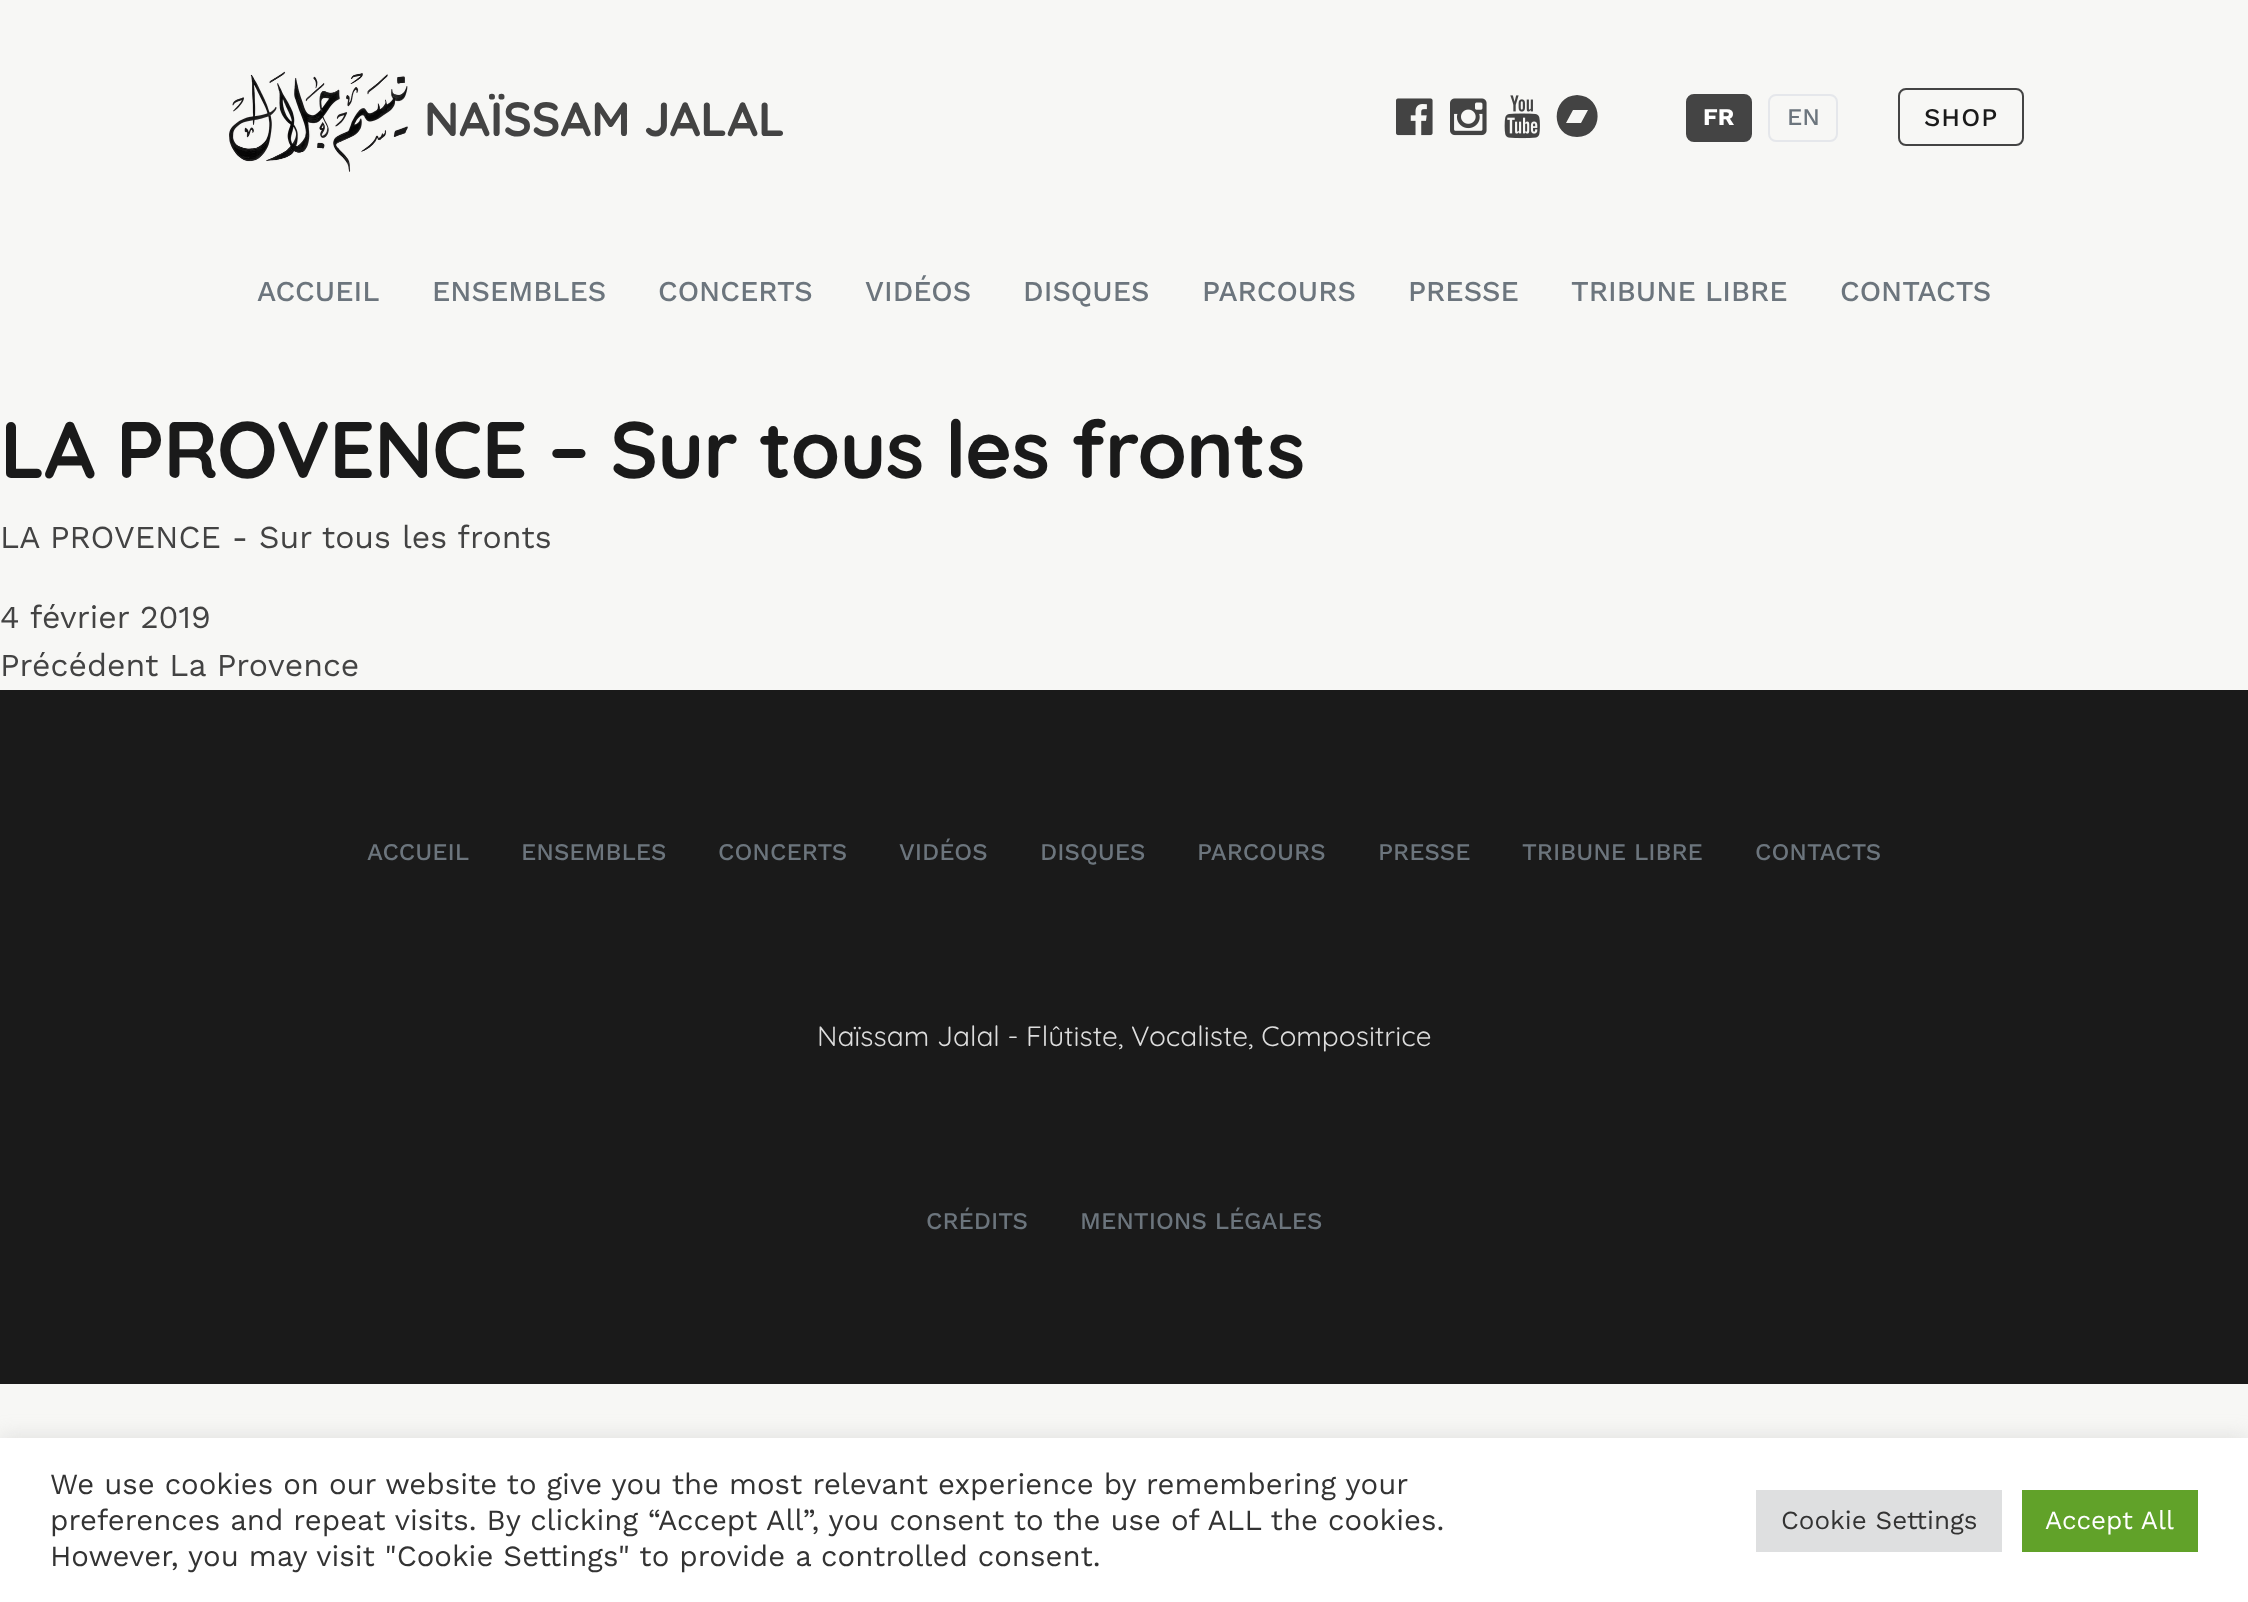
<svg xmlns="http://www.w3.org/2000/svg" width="2248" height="1602">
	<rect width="100%" height="100%" fill="#F7F7F5" />
	<image x="229" y="71" width="179" height="101" href="assets/img1.png" />
	<text x="424" y="136" font-family="Quicksand" font-size="48" font-weight="700" fill="#434343">NAÏSSAM JALAL</text>
	<image x="1396" y="98" width="37" height="38" href="assets/img2.png" />
	<image x="1450" y="98" width="37" height="38" href="assets/img3.png" />
	<image x="1504" y="95" width="36" height="44" href="assets/img4.png" />
	<path d="M1577 95C1550 96 1550 137 1577 137C1604 137 1605 96 1577 95ZM1581 123H1566H1581H1566L1573 110H1588Z" fill="#434343" />
	<rect x="1687" y="95" width="64" height="46" rx="7" fill="#444444" stroke="#444444" stroke-width="2" />
	<text x="1703" y="125" font-family="Work Sans" font-size="24" font-weight="700" fill="#FFFFFF">FR</text>
	<rect x="1769" y="95" width="68" height="46" rx="7" fill="none" stroke="#E5E7EB" stroke-width="2" />
	<text x="1787" y="125" font-family="Work Sans" font-size="24" font-weight="500" fill="#6C757D">EN</text>
	<rect x="1899" y="89" width="124" height="56" rx="7" fill="none" stroke="#444444" stroke-width="2" />
	<text x="1924" y="126" font-family="Work Sans" font-size="25.5" font-weight="500" letter-spacing="1" fill="#1A1A1A">SHOP</text>
	<g font-family="Work Sans" font-size="28.75" font-weight="500" fill="#6C757D">
		<text x="257" y="301">ACCUEIL</text>
		<text x="432" y="301">ENSEMBLES</text>
		<text x="658" y="301">CONCERTS</text>
		<text x="865" y="301">VIDÉOS</text>
		<text x="1023" y="301">DISQUES</text>
		<text x="1202" y="301">PARCOURS</text>
		<text x="1408" y="301">PRESSE</text>
		<text x="1571" y="301">TRIBUNE LIBRE</text>
		<text x="1840" y="301">CONTACTS</text>
	</g>
	<text x="0" y="478" font-family="Quicksand" font-size="80" font-weight="700" letter-spacing="-0.8" fill="#1A1A1A">LA PROVENCE – Sur tous les fronts</text>
	<g font-family="Work Sans" font-size="32" fill="#434343">
		<text x="0" y="548">LA PROVENCE - Sur tous les fronts</text>
		<text x="0" y="628">4 février 2019</text>
		<text x="0" y="676">Précédent La Provence</text>
	</g>
	<rect x="0" y="690" width="2248" height="694" fill="#1A1A1A" />
	<g font-family="Work Sans" font-size="24" font-weight="500" fill="#6C757D">
		<text x="367" y="860">ACCUEIL</text>
		<text x="521" y="860">ENSEMBLES</text>
		<text x="718" y="860">CONCERTS</text>
		<text x="899" y="860">VIDÉOS</text>
		<text x="1040" y="860">DISQUES</text>
		<text x="1197" y="860">PARCOURS</text>
		<text x="1378" y="860">PRESSE</text>
		<text x="1522" y="860">TRIBUNE LIBRE</text>
		<text x="1755" y="860">CONTACTS</text>
	</g>
	<text x="817" y="1046" font-family="Quicksand" font-size="28" fill="#DDDDDD">Naïssam Jalal - Flûtiste, Vocaliste, Compositrice</text>
	<g font-family="Work Sans" font-size="24" font-weight="500" fill="#6C757D">
		<text x="926" y="1229">CRÉDITS</text>
		<text x="1080" y="1229">MENTIONS LÉGALES</text>
	</g>
	<rect x="0" y="1436" width="2248" height="164" fill="#ACABAB" fill-opacity="0.3" filter="blur(10px)" />
	<rect x="0" y="1438" width="2248" height="164" fill="#FFFFFF" />
	<g font-family="Work Sans" font-size="29.35" fill="#333333">
		<text x="50" y="1494">We use cookies on our website to give you the most relevant experience by remembering your</text>
		<text x="50" y="1530">preferences and repeat visits. By clicking “Accept All”, you consent to the use of ALL the cookies.</text>
		<text x="50" y="1566">However, you may visit "Cookie Settings" to provide a controlled consent.</text>
	</g>
	<rect x="1756" y="1490" width="246" height="62" fill="#DEDFE0" />
	<text x="1781" y="1529" font-family="Work Sans" font-size="26" fill="#333333">Cookie Settings</text>
	<rect x="2022" y="1490" width="176" height="62" fill="#61A229" />
	<text x="2045" y="1529" font-family="Work Sans" font-size="26" fill="#FFFFFF">Accept All</text>
</svg>
